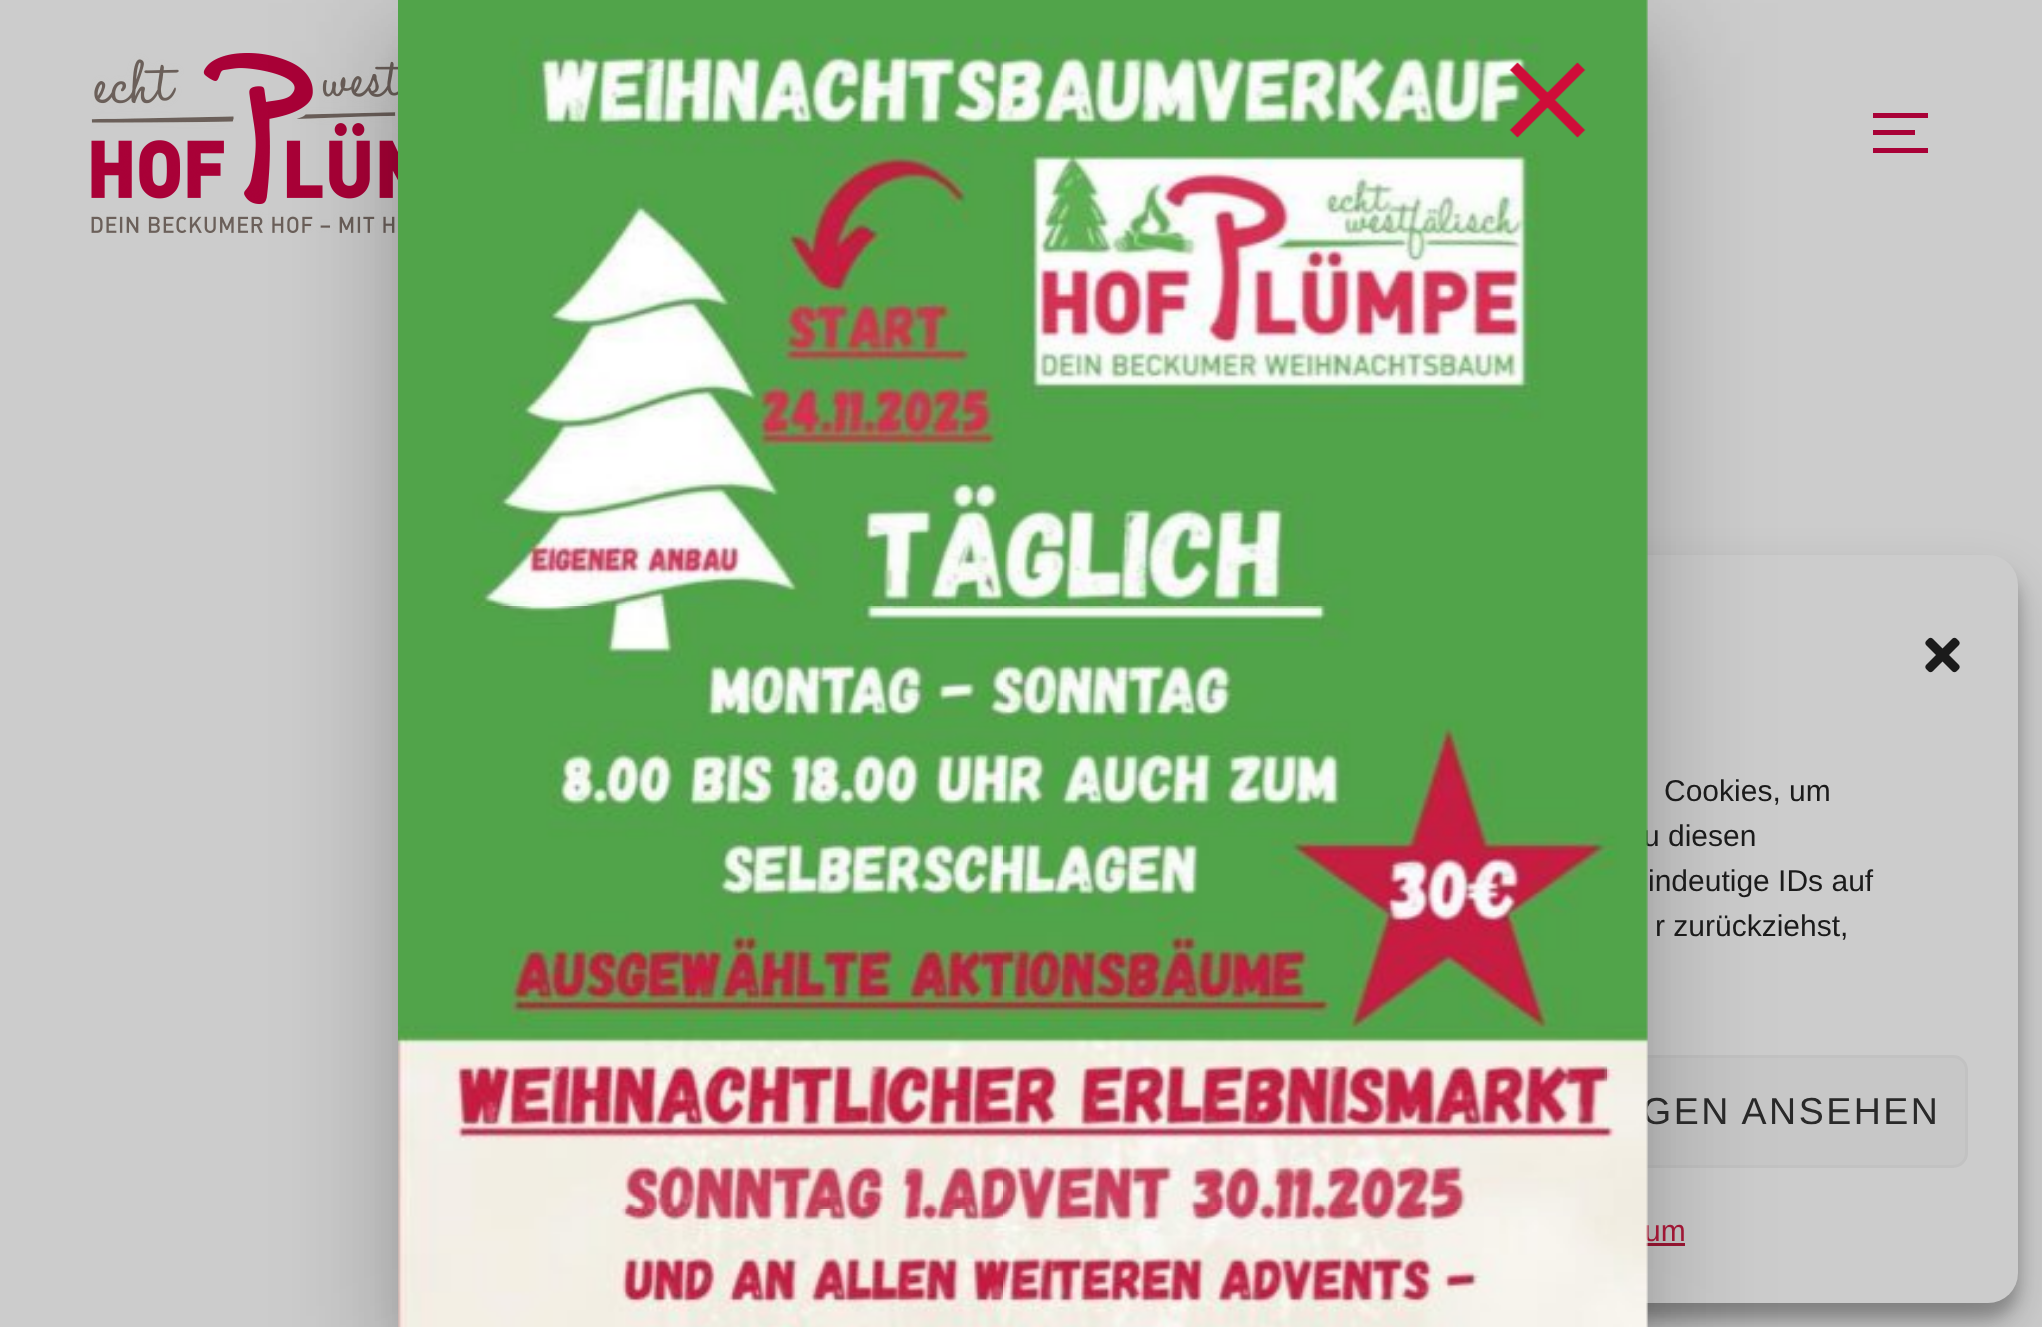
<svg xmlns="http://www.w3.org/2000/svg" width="2042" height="1327">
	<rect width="100%" height="100%" fill="#CCCCCC" />
	<image x="91" y="53" width="307" height="180" href="assets/img3.png" />
	<rect x="638" y="570" width="1380" height="748" rx="30" fill="#000000" fill-opacity="0.23" filter="blur(7.5px)" />
	<rect x="638" y="580" width="1380" height="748" rx="30" fill="#000000" fill-opacity="0.19" filter="blur(25px)" />
	<rect x="638" y="555" width="1380" height="748" rx="30" fill="#CCCCCC" />
	<rect x="1359.5" y="1056.5" width="607" height="110" rx="13.5" fill="#C7C7C7" stroke="#C2C2C2" stroke-width="3" />
	<rect x="1646" y="1243" width="39" height="3" fill="#9F1735" />
	<rect x="378" y="3" width="1290" height="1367" fill="#000000" fill-opacity="0.1" filter="blur(57.5px)" />
	<rect x="390" y="53" width="1265" height="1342" fill="#000000" fill-opacity="0.1" filter="blur(47.5px)" />
	<rect x="415" y="45" width="1215" height="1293" fill="#000000" fill-opacity="0.2" filter="blur(19px)" />
	<text x="1643" y="846" font-family="Liberation Sans" font-size="30" fill="#1B1B1B">u diesen</text>
	<text x="1642" y="1124" font-family="Liberation Sans" font-size="37.5" letter-spacing="2.5" fill="#292929">GEN ANSEHEN</text>
	<text x="1644" y="1241" font-family="Liberation Sans" font-size="30" fill="#9F1735">um</text>
	<image x="398" y="0" width="1250" height="1327" href="assets/img1.png" />
	<image x="1509" y="62" width="77" height="76" href="assets/img2.png" />
	<rect x="1873" y="113" width="55" height="5" fill="#A90137" />
	<rect x="1873" y="130" width="42" height="5" fill="#A90137" />
	<rect x="1873" y="148" width="55" height="5" fill="#A90137" />
	<image x="1925" y="637" width="35" height="36" href="assets/img4.png" />
	<g font-family="Liberation Sans" font-size="30" fill="#1B1B1B">
		<text x="1664" y="801">Cookies, um</text>
		<text x="1648" y="891">indeutige IDs auf</text>
		<text x="1655" y="936">r zurückziehst,</text>
	</g>
</svg>
